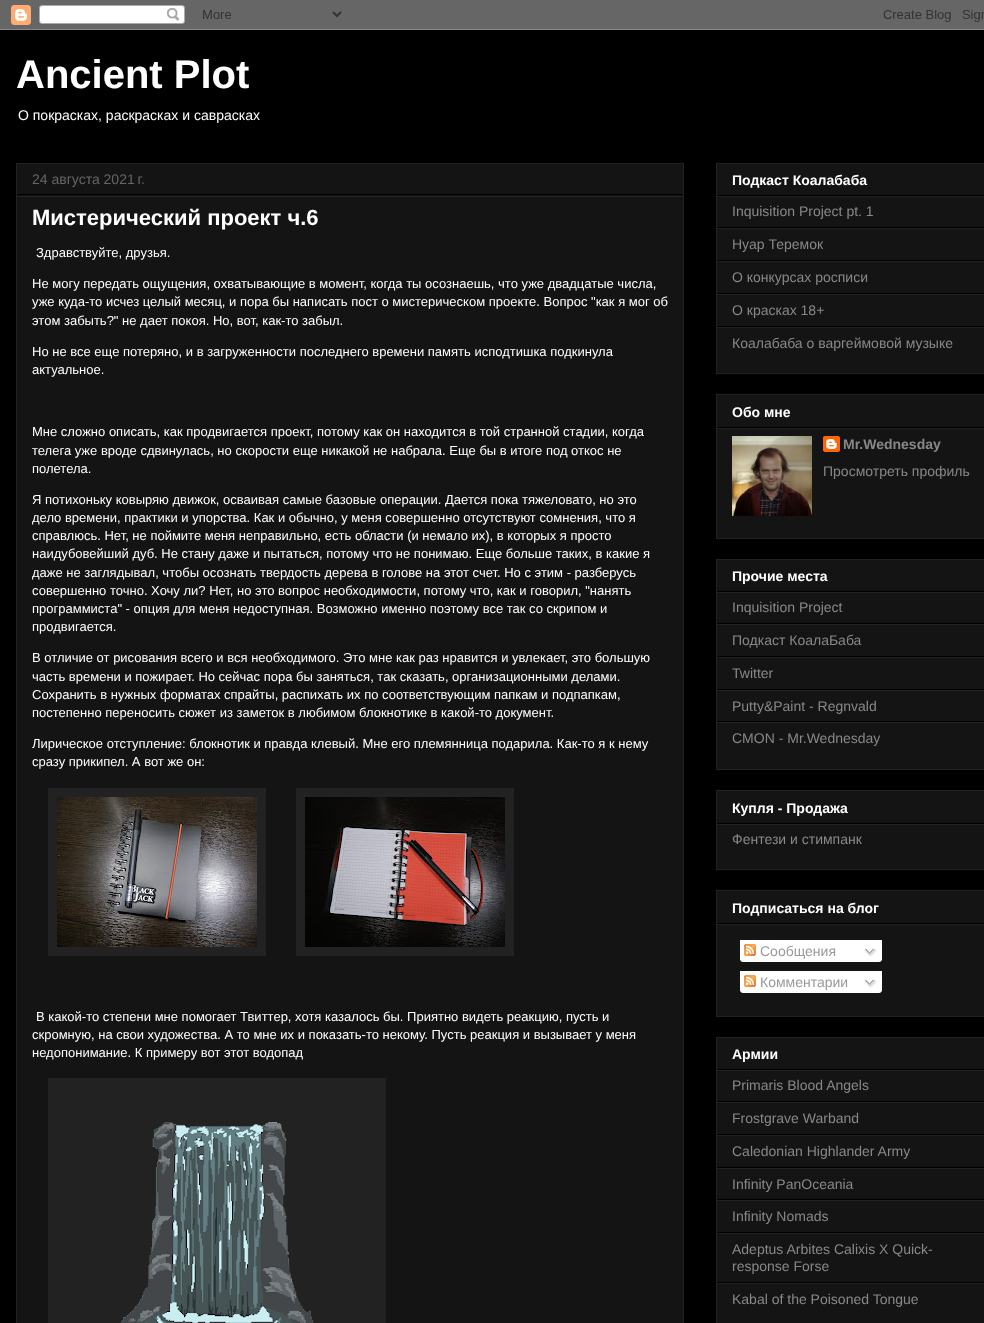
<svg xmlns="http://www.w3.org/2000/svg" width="984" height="1323">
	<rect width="100%" height="100%" fill="#000000" />
	<image x="0" y="0" width="984" height="30" href="assets/img1.png" />
	<text x="16" y="88" font-family="Liberation Sans" font-size="40" font-weight="700" fill="#FFFFFF">Ancient Plot</text>
	<text x="18" y="120" font-family="Liberation Sans" font-size="14" fill="#FFFFFF">О покрасках, раскрасках и саврасках</text>
	<rect x="16.5" y="163.5" width="667" height="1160" fill="#141414" stroke="#222222" />
	<rect x="17" y="194" width="666" height="1" fill="#000000" />
	<text x="32" y="184" font-family="Liberation Sans" font-size="14" fill="#666666">24 августа 2021 г.</text>
	<rect x="17" y="196" width="666" height="1" fill="#222222" />
	<text x="32" y="225" font-family="Liberation Sans" font-size="22" font-weight="700" fill="#FFFFFF">Мистерический проект ч.6</text>
	<g font-family="Liberation Sans" font-size="13" fill="#FFFFFF">
		<text x="36" y="257">Здравствуйте, друзья.</text>
		<text x="32" y="288">Не могу передать ощущения, охватывающие в момент, когда ты осознаешь, что уже двадцатые числа,</text>
		<text x="32" y="306">уже куда-то исчез целый месяц, и пора бы написать пост о мистерическом проекте. Вопрос "как я мог об</text>
		<text x="32" y="325">этом забыть?" не дает покоя. Но, вот, как-то забыл.</text>
		<text x="32" y="356">Но не все еще потеряно, и в загруженности последнего времени память исподтишка подкинула</text>
		<text x="32" y="374">актуальное.</text>
		<text x="32" y="436">Мне сложно описать, как продвигается проект, потому как он находится в той странной стадии, когда</text>
		<text x="32" y="455">телега уже вроде сдвинулась, но скорости еще никакой не набрала. Еще бы в итоге под откос не</text>
		<text x="32" y="473">полетела.</text>
		<text x="32" y="504">Я потихоньку ковыряю движок, осваивая самые базовые операции. Дается пока тяжеловато, но это</text>
		<text x="32" y="522">дело времени, практики и упорства. Как и обычно, у меня совершенно отсутствуют сомнения, что я</text>
		<text x="32" y="540">справлюсь. Нет, не поймите меня неправильно, есть области (и немало их), в которых я просто</text>
		<text x="32" y="558">наидубовейший дуб. Не стану даже и пытаться, потому что не понимаю. Еще больше таких, в какие я</text>
		<text x="32" y="577">даже не заглядывал, чтобы осознать твердость дерева в голове на этот счет. Но с этим - разберусь</text>
		<text x="32" y="595">совершенно точно. Хочу ли? Нет, но это вопрос необходимости, потому что, как и говорил, "нанять</text>
		<text x="32" y="613">программиста" - опция для меня недоступная. Возможно именно поэтому все так со скрипом и</text>
		<text x="32" y="631">продвигается.</text>
		<text x="32" y="662">В отличие от рисования всего и вся необходимого. Это мне как раз нравится и увлекает, это большую</text>
		<text x="32" y="681">часть времени и пожирает. Но сейчас пора бы заняться, так сказать, организационными делами.</text>
		<text x="32" y="699">Сохранить в нужных форматах спрайты, распихать их по соответствующим папкам и подпапкам,</text>
		<text x="32" y="717">постепенно переносить сюжет из заметок в любимом блокнотике в какой-то документ.</text>
		<text x="32" y="748">Лирическое отступление: блокнотик и правда клевый. Мне его племянница подарила. Как-то я к нему</text>
		<text x="32" y="766">сразу прикипел. А вот же он:</text>
	</g>
	<rect x="48" y="788" width="218" height="168" fill="#222222" />
	<image x="57" y="797" width="200" height="150" href="assets/img2.png" />
	<rect x="296" y="788" width="218" height="168" fill="#222222" />
	<image x="305" y="797" width="200" height="150" href="assets/img3.png" />
	<g font-family="Liberation Sans" font-size="13" fill="#FFFFFF">
		<text x="36" y="1021">В какой-то степени мне помогает Твиттер, хотя казалось бы. Приятно видеть реакцию, пусть и</text>
		<text x="32" y="1039">скромную, на свои художества. А то мне их и показать-то некому. Пусть реакция и вызывает у меня</text>
		<text x="32" y="1057">недопонимание. К примеру вот этот водопад</text>
	</g>
	<rect x="48" y="1078" width="338" height="245" fill="#222222" />
	<image x="120" y="1122" width="194" height="201" href="assets/img4.png" />
	<rect x="716.5" y="163.5" width="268" height="210" fill="#141414" stroke="#222222" />
	<rect x="717" y="195" width="267" height="1" fill="#000000" />
	<text x="732" y="185" font-family="Liberation Sans" font-size="14" font-weight="700" fill="#FFFFFF">Подкаст Коалабаба</text>
	<rect x="717" y="196" width="267" height="1" fill="#222222" />
	<rect x="717" y="227" width="267" height="1" fill="#000000" />
	<text x="732" y="216" font-family="Liberation Sans" font-size="14" fill="#888888">Inquisition Project pt. 1</text>
	<rect x="717" y="228" width="267" height="1" fill="#222222" />
	<rect x="717" y="260" width="267" height="1" fill="#000000" />
	<text x="732" y="249" font-family="Liberation Sans" font-size="14" fill="#888888">Нуар Теремок</text>
	<rect x="717" y="261" width="267" height="1" fill="#222222" />
	<rect x="717" y="293" width="267" height="1" fill="#000000" />
	<text x="732" y="282" font-family="Liberation Sans" font-size="14" fill="#888888">О конкурсах росписи</text>
	<rect x="717" y="294" width="267" height="1" fill="#222222" />
	<rect x="717" y="326" width="267" height="1" fill="#000000" />
	<text x="732" y="315" font-family="Liberation Sans" font-size="14" fill="#888888">О красках 18+</text>
	<rect x="717" y="327" width="267" height="1" fill="#222222" />
	<text x="732" y="348" font-family="Liberation Sans" font-size="14" fill="#888888">Коалабаба о варгеймовой музыке</text>
	<rect x="716.5" y="394.5" width="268" height="144" fill="#141414" stroke="#222222" />
	<rect x="717" y="427" width="267" height="1" fill="#000000" />
	<text x="732" y="417" font-family="Liberation Sans" font-size="14" font-weight="700" fill="#FFFFFF">Обо мне</text>
	<rect x="717" y="428" width="267" height="1" fill="#222222" />
	<image x="732" y="436" width="80" height="80" href="assets/img5.png" />
	<image x="823" y="436" width="17" height="16" href="assets/img6.png" />
	<text x="843" y="449" font-family="Liberation Sans" font-size="14" font-weight="700" fill="#888888">Mr.Wednesday</text>
	<text x="823" y="476" font-family="Liberation Sans" font-size="14" fill="#888888">Просмотреть профиль</text>
	<rect x="716.5" y="559.5" width="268" height="210" fill="#141414" stroke="#222222" />
	<rect x="717" y="591" width="267" height="1" fill="#000000" />
	<text x="732" y="581" font-family="Liberation Sans" font-size="14" font-weight="700" fill="#FFFFFF">Прочие места</text>
	<rect x="717" y="592" width="267" height="1" fill="#222222" />
	<rect x="717" y="623" width="267" height="1" fill="#000000" />
	<text x="732" y="612" font-family="Liberation Sans" font-size="14" fill="#888888">Inquisition Project</text>
	<rect x="717" y="624" width="267" height="1" fill="#222222" />
	<rect x="717" y="656" width="267" height="1" fill="#000000" />
	<text x="732" y="645" font-family="Liberation Sans" font-size="14" fill="#888888">Подкаст КоалаБаба</text>
	<rect x="717" y="657" width="267" height="1" fill="#222222" />
	<rect x="717" y="689" width="267" height="1" fill="#000000" />
	<text x="732" y="678" font-family="Liberation Sans" font-size="14" fill="#888888">Twitter</text>
	<rect x="717" y="690" width="267" height="1" fill="#222222" />
	<rect x="717" y="721" width="267" height="1" fill="#000000" />
	<text x="732" y="711" font-family="Liberation Sans" font-size="14" fill="#888888">Putty&amp;Paint - Regnvald</text>
	<rect x="717" y="722" width="267" height="1" fill="#222222" />
	<text x="732" y="743" font-family="Liberation Sans" font-size="14" fill="#888888">CMON - Mr.Wednesday</text>
	<rect x="716.5" y="790.5" width="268" height="79" fill="#141414" stroke="#222222" />
	<rect x="717" y="823" width="267" height="1" fill="#000000" />
	<text x="732" y="813" font-family="Liberation Sans" font-size="14" font-weight="700" fill="#FFFFFF">Купля - Продажа</text>
	<rect x="717" y="824" width="267" height="1" fill="#222222" />
	<text x="732" y="844" font-family="Liberation Sans" font-size="14" fill="#888888">Фентези и стимпанк</text>
	<rect x="716.5" y="890.5" width="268" height="126" fill="#141414" stroke="#222222" />
	<rect x="717" y="923" width="267" height="1" fill="#000000" />
	<text x="732" y="913" font-family="Liberation Sans" font-size="14" font-weight="700" fill="#FFFFFF">Подписаться на блог</text>
	<rect x="717" y="924" width="267" height="1" fill="#222222" />
	<rect x="740" y="940" width="142" height="20" fill="#FFFFFF" />
	<image x="744" y="944" width="12" height="12" href="assets/img7.png" />
	<text x="760" y="956" font-family="Liberation Sans" font-size="14" fill="#999999">Сообщения</text>
	<image x="864" y="948" width="13" height="9" href="assets/img8.png" />
	<image x="740" y="960" width="142" height="2" href="assets/img9.png" />
	<rect x="740" y="971" width="142" height="20" fill="#FFFFFF" />
	<image x="744" y="975" width="12" height="12" href="assets/img7.png" />
	<text x="760" y="987" font-family="Liberation Sans" font-size="14" fill="#999999">Комментарии</text>
	<image x="864" y="979" width="13" height="9" href="assets/img8.png" />
	<image x="740" y="991" width="142" height="2" href="assets/img9.png" />
	<rect x="716.5" y="1037.5" width="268" height="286" fill="#141414" stroke="#222222" />
	<rect x="717" y="1069" width="267" height="1" fill="#000000" />
	<text x="732" y="1059" font-family="Liberation Sans" font-size="14" font-weight="700" fill="#FFFFFF">Армии</text>
	<rect x="717" y="1070" width="267" height="1" fill="#222222" />
	<rect x="717" y="1101" width="267" height="1" fill="#000000" />
	<text x="732" y="1090" font-family="Liberation Sans" font-size="14" fill="#888888">Primaris Blood Angels</text>
	<rect x="717" y="1102" width="267" height="1" fill="#222222" />
	<rect x="717" y="1134" width="267" height="1" fill="#000000" />
	<text x="732" y="1123" font-family="Liberation Sans" font-size="14" fill="#888888">Frostgrave Warband</text>
	<rect x="717" y="1135" width="267" height="1" fill="#222222" />
	<rect x="717" y="1167" width="267" height="1" fill="#000000" />
	<text x="732" y="1156" font-family="Liberation Sans" font-size="14" fill="#888888">Caledonian Highlander Army</text>
	<rect x="717" y="1168" width="267" height="1" fill="#222222" />
	<rect x="717" y="1199" width="267" height="1" fill="#000000" />
	<text x="732" y="1189" font-family="Liberation Sans" font-size="14" fill="#888888">Infinity PanOceania</text>
	<rect x="717" y="1200" width="267" height="1" fill="#222222" />
	<rect x="717" y="1232" width="267" height="1" fill="#000000" />
	<text x="732" y="1221" font-family="Liberation Sans" font-size="14" fill="#888888">Infinity Nomads</text>
	<rect x="717" y="1233" width="267" height="1" fill="#222222" />
	<rect x="717" y="1282" width="267" height="1" fill="#000000" />
	<g font-family="Liberation Sans" font-size="14" fill="#888888">
		<text x="732" y="1254">Adeptus Arbites Calixis X Quick-</text>
		<text x="732" y="1271">response Forse</text>
	</g>
	<rect x="717" y="1283" width="267" height="1" fill="#222222" />
	<text x="732" y="1304" font-family="Liberation Sans" font-size="14" fill="#888888">Kabal of the Poisoned Tongue</text>
</svg>
